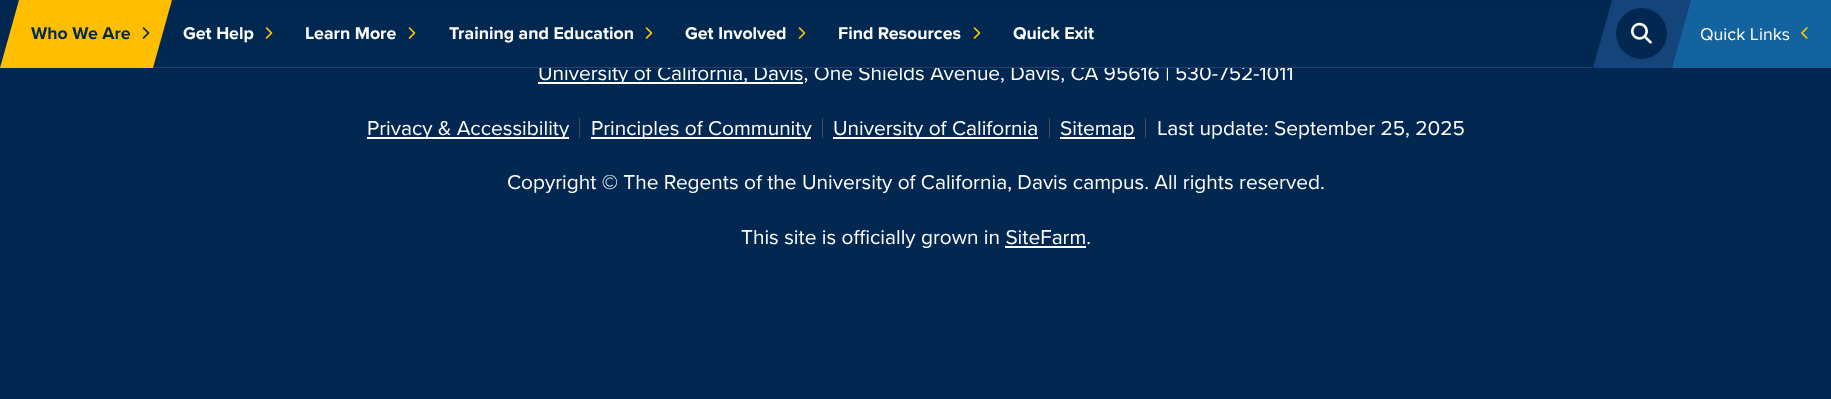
<svg xmlns="http://www.w3.org/2000/svg" width="1831" height="399">
	<rect width="100%" height="100%" fill="#022851" />
	<rect x="0" y="2" width="1831" height="68" fill="#022851" fill-opacity="0.15" filter="blur(0.5px)" />
	<rect x="538" y="82" width="265" height="2" fill="#FFFFFF" />
	<text x="538" y="80" font-family="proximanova" font-size="20.85" fill="#FFFFFF">University of California, Davis, One Shields Avenue, Davis, CA 95616 | 530-752-1011</text>
	<rect x="539" y="65" width="753" height="3" fill="#022851" />
	<rect x="0" y="67" width="1592" height="1" fill="#14447A" />
	<rect x="21" y="0" width="130" height="68" fill="#FFBF00" />
	<path d="M19 0L0 68H21V0Z" fill="#FFBF00" />
	<text x="31" y="39" font-family="proximanova" font-size="17.75" font-weight="700" fill="#022851">Who We Are</text>
	<image x="142" y="27" width="8" height="12" href="assets/img1.png" />
	<path d="M151 0H172L153 68H151Z" fill="#FFBF00" />
	<text x="183" y="39" font-family="proximanova" font-size="17.75" font-weight="700" fill="#FFFFFF">Get Help</text>
	<image x="265" y="27" width="8" height="12" href="assets/img2.png" />
	<text x="305" y="39" font-family="proximanova" font-size="17.75" font-weight="700" fill="#FFFFFF">Learn More</text>
	<image x="408" y="27" width="8" height="12" href="assets/img2.png" />
	<text x="449" y="39" font-family="proximanova" font-size="17.75" font-weight="700" fill="#FFFFFF">Training and Education</text>
	<image x="645" y="27" width="8" height="12" href="assets/img2.png" />
	<text x="685" y="39" font-family="proximanova" font-size="17.75" font-weight="700" fill="#FFFFFF">Get Involved</text>
	<image x="798" y="27" width="8" height="12" href="assets/img2.png" />
	<text x="838" y="39" font-family="proximanova" font-size="17.75" font-weight="700" fill="#FFFFFF">Find Resources</text>
	<image x="973" y="27" width="8" height="12" href="assets/img2.png" />
	<text x="1013" y="39" font-family="proximanova" font-size="17.75" font-weight="700" fill="#FFFFFF">Quick Exit</text>
	<path d="M1688 0L1669 68H1689V0Z" fill="#13639E" />
	<rect x="1613" y="0" width="57" height="68" fill="#14447A" />
	<path d="M1612 0L1593 68H1613V0Z" fill="#14447A" />
	<circle cx="1641.5" cy="33.5" r="25.5" fill="#022851" />
	<image x="1631" y="22" width="21" height="22" href="assets/img3.png" />
	<rect x="1689" y="0" width="142" height="68" fill="#13639E" />
	<path d="M1670 0H1691L1672 68H1670Z" fill="#14447A" />
	<text x="1700" y="40" font-family="proximanova" font-size="17.75" fill="#FFFFFF">Quick Links</text>
	<image x="1801" y="27" width="7" height="12" href="assets/img4.png" />
	<rect x="579" y="118" width="1" height="20" fill="#4C4C4C" />
	<rect x="367" y="137" width="202" height="2" fill="#FFFFFF" />
	<text x="367" y="135" font-family="proximanova" font-size="20.85" fill="#FFFFFF">Privacy &amp; Accessibility</text>
	<rect x="822" y="118" width="1" height="20" fill="#4C4C4C" />
	<rect x="591" y="137" width="220" height="2" fill="#FFFFFF" />
	<text x="591" y="135" font-family="proximanova" font-size="20.85" fill="#FFFFFF">Principles of Community</text>
	<rect x="1049" y="118" width="1" height="20" fill="#4C4C4C" />
	<rect x="833" y="137" width="205" height="2" fill="#FFFFFF" />
	<text x="833" y="135" font-family="proximanova" font-size="20.85" fill="#FFFFFF">University of California</text>
	<rect x="1145" y="118" width="1" height="20" fill="#4C4C4C" />
	<rect x="1060" y="137" width="75" height="2" fill="#FFFFFF" />
	<g font-family="proximanova" font-size="20.85" fill="#FFFFFF">
		<text x="1060" y="135">Sitemap</text>
		<text x="1157" y="135">Last update: September 25, 2025</text>
		<text x="507" y="189">Copyright © The Regents of the University of California, Davis campus. All rights reserved.</text>
		<text x="741" y="244">This site is officially grown in SiteFarm.</text>
	</g>
	<rect x="1005" y="246" width="81" height="2" fill="#FFFFFF" />
</svg>
